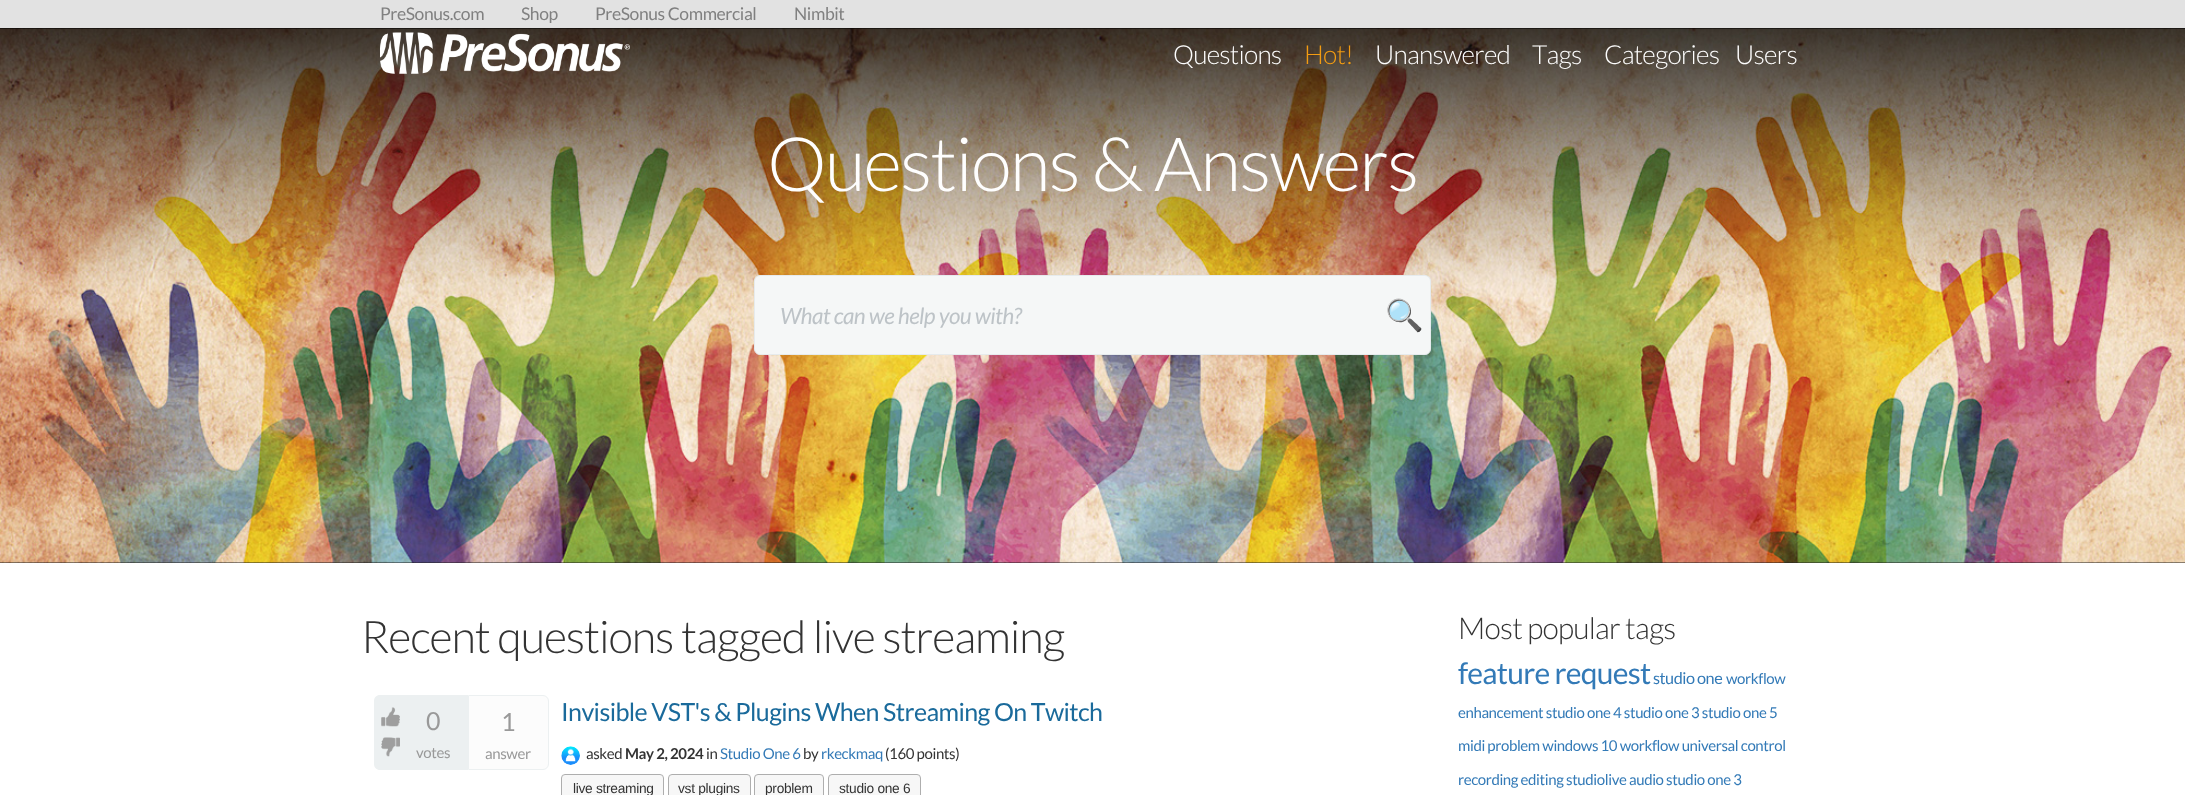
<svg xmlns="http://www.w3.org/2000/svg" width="2185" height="795">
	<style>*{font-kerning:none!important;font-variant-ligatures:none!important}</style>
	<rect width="100%" height="100%" fill="#FFFFFF" />
	<rect x="0" y="562" width="2185" height="1" fill="#222222" />
	<image x="0" y="28" width="2185" height="535" href="assets/img2.png" />
	<rect x="-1" y="-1" width="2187" height="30" fill="#000000" fill-opacity="0.5" filter="blur(0.5px)" />
	<rect x="0" y="0" width="2185" height="28" fill="#E2E2E2" />
	<g font-family="Lato" font-size="17.5" letter-spacing="-0.4" fill="#808080">
		<text x="380" y="20">PreSonus.com</text>
		<text x="521" y="20">Shop</text>
		<text x="595" y="20">PreSonus Commercial</text>
		<text x="794" y="20">Nimbit</text>
	</g>
	<image x="380" y="32" width="250" height="42" href="assets/img1.png" />
	<text x="1173" y="64" font-family="Lato" font-size="26.25" font-weight="300" letter-spacing="-0.75" fill="#FEFEFE">Questions</text>
	<text x="1304" y="64" font-family="Lato" font-size="26.25" font-weight="300" letter-spacing="-0.75" fill="#F39C12">Hot!</text>
	<g font-family="Lato" font-size="26.25" font-weight="300" letter-spacing="-0.75" fill="#FEFEFE">
		<text x="1375" y="64">Unanswered</text>
		<text x="1532" y="64">Tags</text>
		<text x="1604" y="64">Categories</text>
		<text x="1735" y="64">Users</text>
	</g>
	<text x="767" y="191" font-family="Lato" font-size="75" font-weight="300" letter-spacing="-1.9" fill="#FEFEFE">Questions &amp; Answers</text>
	<rect x="754.5" y="275.5" width="676" height="79" rx="5.5" fill="#F5F7F7" stroke="#E6EBED" />
	<text x="780" y="324" font-family="Lato" font-size="22.5" font-style="italic" letter-spacing="-0.55" fill="#BDC3C7">What can we help you with?</text>
	<text x="1385" y="326" font-family="Noto Color Emoji" font-size="31" letter-spacing="-0.4" fill="#CCCCCC">🔍</text>
	<text x="361" y="653" font-family="Lato" font-size="45" font-weight="300" letter-spacing="-1.1" fill="#333333">Recent questions tagged live streaming</text>
	<path d="M380 695H468V770H380C376.5 770 374 767.5 374 764V701C374 697.5 376.5 695 380 695Z" fill="#ECF0F1" />
	<image x="381" y="707" width="19" height="20" href="assets/img3.png" />
	<image x="381" y="737" width="19" height="20" href="assets/img4.png" />
	<text x="426" y="730" font-family="Lato" font-size="25" letter-spacing="-0.6" fill="#999999">0</text>
	<text x="416" y="758" font-family="Lato" font-size="15" letter-spacing="-0.38" fill="#999999">votes</text>
	<path d="M468.5 695.5H543C546 695.5 548.5 698 548.5 701V764C548.5 767 546 769.5 543 769.5H468.5Z" fill="#FCFCFC" stroke="#ECF0F1" />
	<text x="501" y="731" font-family="Lato" font-size="25" letter-spacing="-0.6" fill="#999999">1</text>
	<text x="485" y="759" font-family="Lato" font-size="15" letter-spacing="-0.38" fill="#999999">answer</text>
	<text x="561" y="721" font-family="Lato" font-size="25" letter-spacing="-0.6" fill="#1A6A9B">Invisible VST's &amp; Plugins When Streaming On Twitch</text>
	<image x="561" y="746" width="19" height="19" href="assets/img5.png" />
	<text x="586" y="759" font-family="Lato" font-size="15" letter-spacing="-0.38" fill="#333333">asked</text>
	<text x="625" y="759" font-family="Lato" font-size="15" font-weight="700" letter-spacing="-0.38" fill="#333333">May 2, 2024</text>
	<text x="706" y="759" font-family="Lato" font-size="15" letter-spacing="-0.38" fill="#333333">in</text>
	<text x="720" y="759" font-family="Lato" font-size="15" letter-spacing="-0.38" fill="#337AB7">Studio One 6</text>
	<text x="803" y="759" font-family="Lato" font-size="15" letter-spacing="-0.38" fill="#333333">by</text>
	<text x="821" y="759" font-family="Lato" font-size="15" letter-spacing="-0.38" fill="#337AB7">rkeckmaq</text>
	<text x="885" y="759" font-family="Lato" font-size="15" letter-spacing="-0.38" fill="#333333">(160 points)</text>
	<rect x="561.5" y="774.5" width="102" height="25" rx="3.5" fill="#F7F7F7" stroke="#AEAEAE" />
	<text x="573" y="793" font-family="Liberation Sans" font-size="13.75" letter-spacing="-0.3" fill="#333333">live streaming</text>
	<rect x="668.5" y="774.5" width="82" height="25" rx="3.5" fill="#F7F7F7" stroke="#AEAEAE" />
	<text x="678" y="793" font-family="Liberation Sans" font-size="13.75" letter-spacing="-0.3" fill="#333333">vst plugins</text>
	<rect x="754.5" y="774.5" width="69" height="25" rx="3.5" fill="#F7F7F7" stroke="#AEAEAE" />
	<text x="765" y="793" font-family="Liberation Sans" font-size="13.75" letter-spacing="-0.3" fill="#333333">problem</text>
	<rect x="828.5" y="774.5" width="92" height="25" rx="3.5" fill="#F7F7F7" stroke="#AEAEAE" />
	<text x="839" y="793" font-family="Liberation Sans" font-size="13.75" letter-spacing="-0.3" fill="#333333">studio one 6</text>
	<text x="1458" y="639" font-family="Lato" font-size="30" font-weight="300" letter-spacing="-0.75" fill="#333333">Most popular tags</text>
	<text x="1458" y="684" font-family="Lato" font-size="30" letter-spacing="-0.75" fill="#337AB7">feature request</text>
	<text x="1653" y="684" font-family="Lato" font-size="16.25" letter-spacing="-0.5" fill="#337AB7">studio one</text>
	<g font-family="Lato" font-size="15" letter-spacing="-0.38" fill="#337AB7">
		<text x="1726" y="684">workflow</text>
		<text x="1458" y="718">enhancement studio one 4 studio one 3 studio one 5</text>
		<text x="1458" y="751">midi problem windows 10 workflow universal control</text>
		<text x="1458" y="785">recording editing studiolive audio studio one 3</text>
	</g>
</svg>
